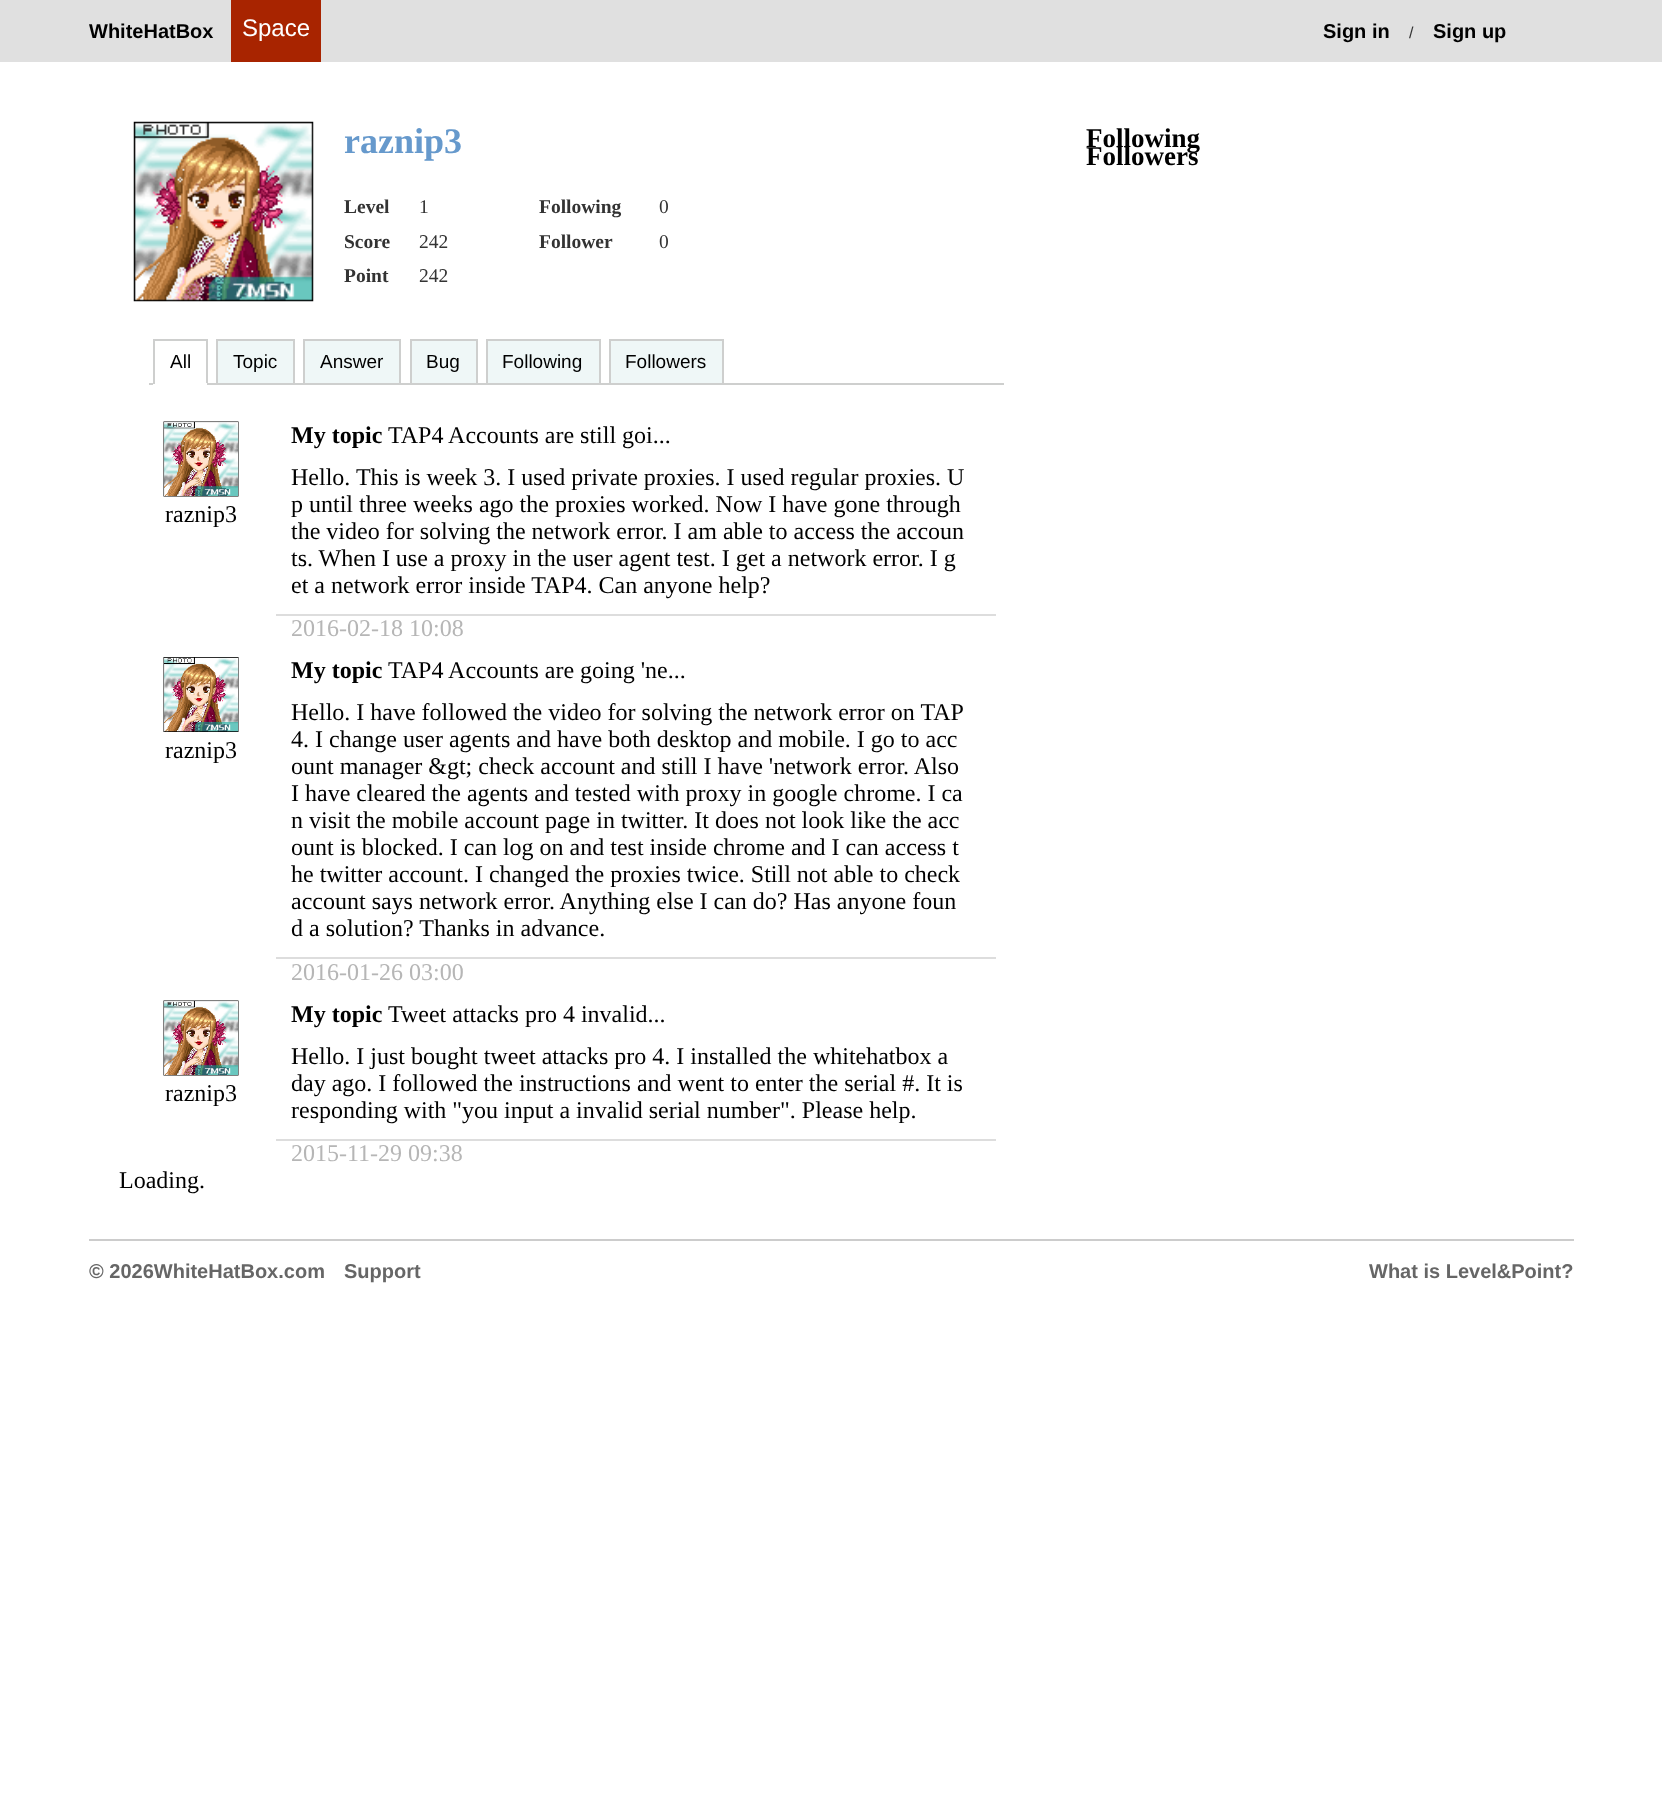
<svg xmlns="http://www.w3.org/2000/svg" width="1662" height="1807">
	<rect width="100%" height="100%" fill="#FFFFFF" />
	<rect x="0" y="0" width="1662" height="62" fill="#E0E0E0" />
	<text x="89" y="38" font-family="Liberation Sans" font-size="20" font-weight="700" fill="#000000">WhiteHatBox</text>
	<rect x="231" y="0" width="90" height="62" fill="#A82400" />
	<text x="242" y="36" font-family="Liberation Sans" font-size="24" fill="#FFFFFF">Space</text>
	<text x="1323" y="38" font-family="Liberation Sans" font-size="20" font-weight="700" fill="#000000">Sign in</text>
	<text x="1409" y="38" font-family="Liberation Sans" font-size="16" fill="#333333">/</text>
	<text x="1433" y="38" font-family="Liberation Sans" font-size="20" font-weight="700" fill="#000000">Sign up</text>
	<image x="133" y="121" width="181" height="181" href="assets/img1.png" />
	<text x="344" y="153" font-family="Liberation Serif" font-size="36" font-weight="700" fill="#6699CC">raznip3</text>
	<text x="344" y="213" font-family="Liberation Serif" font-size="19.5" font-weight="700" fill="#333333">Level</text>
	<text x="419" y="213" font-family="Liberation Serif" font-size="19.5" fill="#333333">1</text>
	<text x="539" y="213" font-family="Liberation Serif" font-size="19.5" font-weight="700" fill="#333333">Following</text>
	<text x="659" y="213" font-family="Liberation Serif" font-size="19.5" fill="#333333">0</text>
	<text x="344" y="248" font-family="Liberation Serif" font-size="19.5" font-weight="700" fill="#333333">Score</text>
	<text x="419" y="248" font-family="Liberation Serif" font-size="19.5" fill="#333333">242</text>
	<text x="539" y="248" font-family="Liberation Serif" font-size="19.5" font-weight="700" fill="#333333">Follower</text>
	<text x="659" y="248" font-family="Liberation Serif" font-size="19.5" fill="#333333">0</text>
	<text x="344" y="282" font-family="Liberation Serif" font-size="19.5" font-weight="700" fill="#333333">Point</text>
	<text x="419" y="282" font-family="Liberation Serif" font-size="19.5" fill="#333333">242</text>
	<rect x="149" y="383" width="855" height="2" fill="#CECFCE" />
	<rect x="153" y="339" width="54" height="2" fill="#CECFCE" />
	<rect x="206" y="339" width="2" height="45" fill="#CECFCE" />
	<rect x="153" y="383" width="54" height="2" fill="#FFFFFF" />
	<rect x="153" y="339" width="2" height="45" fill="#CECFCE" />
	<text x="170" y="368" font-family="Liberation Sans" font-size="19" fill="#000000">All</text>
	<rect x="218" y="341" width="75" height="42" fill="#EFF7F7" />
	<rect x="216" y="339" width="78" height="2" fill="#CECFCE" />
	<rect x="293" y="339" width="2" height="44" fill="#CECFCE" />
	<rect x="216" y="339" width="2" height="44" fill="#CECFCE" />
	<text x="233" y="368" font-family="Liberation Sans" font-size="19" fill="#000000">Topic</text>
	<rect x="305" y="341" width="94" height="42" fill="#EFF7F7" />
	<rect x="303" y="339" width="98" height="2" fill="#CECFCE" />
	<rect x="399" y="339" width="2" height="44" fill="#CECFCE" />
	<rect x="303" y="339" width="2" height="44" fill="#CECFCE" />
	<text x="320" y="368" font-family="Liberation Sans" font-size="19" fill="#000000">Answer</text>
	<rect x="412" y="341" width="64" height="42" fill="#EFF7F7" />
	<rect x="410" y="339" width="67" height="2" fill="#CECFCE" />
	<rect x="476" y="339" width="2" height="44" fill="#CECFCE" />
	<rect x="410" y="339" width="2" height="44" fill="#CECFCE" />
	<text x="426" y="368" font-family="Liberation Sans" font-size="19" fill="#000000">Bug</text>
	<rect x="488" y="341" width="111" height="42" fill="#EFF7F7" />
	<rect x="486" y="339" width="114" height="2" fill="#CECFCE" />
	<rect x="599" y="339" width="2" height="44" fill="#CECFCE" />
	<rect x="486" y="339" width="2" height="44" fill="#CECFCE" />
	<text x="502" y="368" font-family="Liberation Sans" font-size="19" fill="#000000">Following</text>
	<rect x="611" y="341" width="111" height="42" fill="#EFF7F7" />
	<rect x="609" y="339" width="114" height="2" fill="#CECFCE" />
	<rect x="722" y="339" width="2" height="44" fill="#CECFCE" />
	<rect x="609" y="339" width="2" height="44" fill="#CECFCE" />
	<text x="625" y="368" font-family="Liberation Sans" font-size="19" fill="#000000">Followers</text>
	<text x="291" y="443" font-family="Liberation Serif" font-size="24" font-weight="700" fill="#000000">My topic</text>
	<text x="388" y="443" font-family="Liberation Serif" font-size="24" fill="#000000">TAP4 Accounts are still goi...</text>
	<image x="163" y="421" width="76" height="76" href="assets/img2.png" />
	<g font-family="Liberation Serif" font-size="24" fill="#000000">
		<text x="165" y="522">raznip3</text>
		<text x="291" y="485">Hello. This is week 3. I used private proxies. I used regular proxies. U</text>
		<text x="291" y="512">p until three weeks ago the proxies worked. Now I have gone through</text>
		<text x="291" y="539">the video for solving the network error. I am able to access the accoun</text>
		<text x="291" y="566">ts. When I use a proxy in the user agent test. I get a network error. I g</text>
		<text x="291" y="593">et a network error inside TAP4. Can anyone help?</text>
	</g>
	<rect x="276" y="614" width="720" height="2" fill="#DDDDDD" />
	<text x="291" y="636" font-family="Liberation Serif" font-size="24" fill="#B6B6B6">2016-02-18 10:08</text>
	<text x="291" y="678" font-family="Liberation Serif" font-size="24" font-weight="700" fill="#000000">My topic</text>
	<text x="388" y="678" font-family="Liberation Serif" font-size="24" fill="#000000">TAP4 Accounts are going 'ne...</text>
	<image x="163" y="657" width="76" height="75" href="assets/img3.png" />
	<g font-family="Liberation Serif" font-size="24" fill="#000000">
		<text x="165" y="758">raznip3</text>
		<text x="291" y="720">Hello. I have followed the video for solving the network error on TAP</text>
		<text x="291" y="747">4. I change user agents and have both desktop and mobile. I go to acc</text>
		<text x="291" y="774">ount manager &amp;gt; check account and still I have 'network error. Also</text>
		<text x="291" y="801">I have cleared the agents and tested with proxy in google chrome. I ca</text>
		<text x="291" y="828">n visit the mobile account page in twitter. It does not look like the acc</text>
		<text x="291" y="855">ount is blocked. I can log on and test inside chrome and I can access t</text>
		<text x="291" y="882">he twitter account. I changed the proxies twice. Still not able to check</text>
		<text x="291" y="909">account says network error. Anything else I can do? Has anyone foun</text>
		<text x="291" y="936">d a solution? Thanks in advance.</text>
	</g>
	<rect x="276" y="957" width="720" height="2" fill="#DDDDDD" />
	<text x="291" y="980" font-family="Liberation Serif" font-size="24" fill="#B6B6B6">2016-01-26 03:00</text>
	<text x="291" y="1022" font-family="Liberation Serif" font-size="24" font-weight="700" fill="#000000">My topic</text>
	<text x="388" y="1022" font-family="Liberation Serif" font-size="24" fill="#000000">Tweet attacks pro 4 invalid...</text>
	<image x="163" y="1000" width="76" height="76" href="assets/img2.png" />
	<g font-family="Liberation Serif" font-size="24" fill="#000000">
		<text x="165" y="1101">raznip3</text>
		<text x="291" y="1064">Hello. I just bought tweet attacks pro 4. I installed the whitehatbox a</text>
		<text x="291" y="1091">day ago. I followed the instructions and went to enter the serial #. It is</text>
		<text x="291" y="1118">responding with "you input a invalid serial number". Please help.</text>
	</g>
	<rect x="276" y="1139" width="720" height="2" fill="#DDDDDD" />
	<text x="291" y="1161" font-family="Liberation Serif" font-size="24" fill="#B6B6B6">2015-11-29 09:38</text>
	<text x="119" y="1188" font-family="Liberation Serif" font-size="24" fill="#000000">Loading.</text>
	<g font-family="Liberation Serif" font-size="27" font-weight="700" fill="#000000">
		<text x="1086" y="147">Following</text>
		<text x="1086" y="165">Followers</text>
	</g>
	<rect x="89" y="1239" width="1485" height="2" fill="#CCCCCC" />
	<g font-family="Liberation Sans" font-size="20" font-weight="700" fill="#666666">
		<text x="89" y="1278">© 2026WhiteHatBox.com</text>
		<text x="344" y="1278">Support</text>
		<text x="1369" y="1278">What is Level&amp;Point?</text>
	</g>
</svg>
